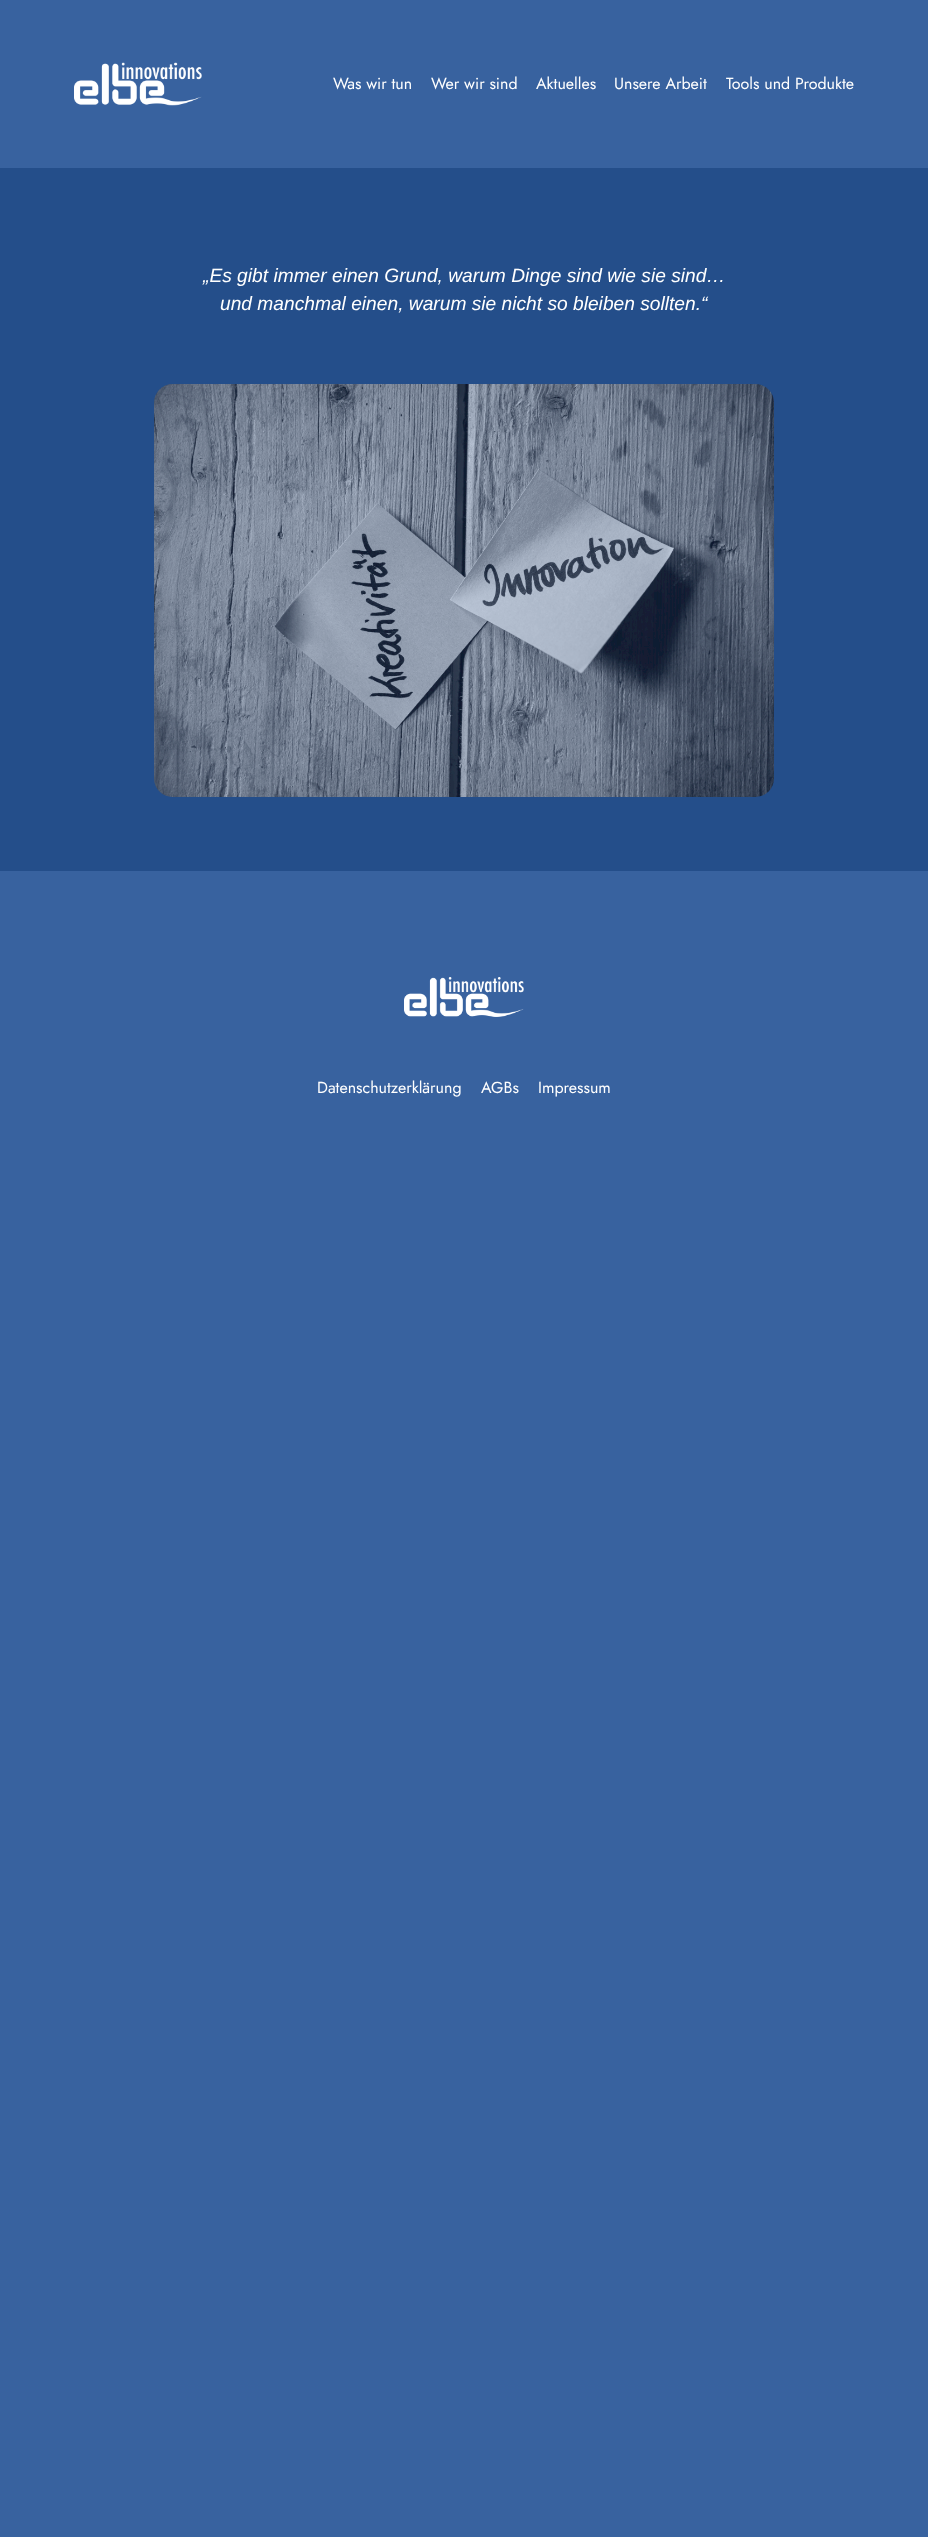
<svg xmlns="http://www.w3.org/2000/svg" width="928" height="2537">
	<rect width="100%" height="100%" fill="#38629F" />
	<image x="74" y="62" width="128" height="44" href="assets/img1.png" />
	<g font-family="Jost" font-size="16" fill="#FFFFFF">
		<text x="333" y="89">Was wir tun</text>
		<text x="431" y="89">Wer wir sind</text>
		<text x="536" y="89">Aktuelles</text>
		<text x="614" y="89">Unsere Arbeit</text>
		<text x="726" y="89">Tools und Produkte</text>
	</g>
	<rect x="0" y="168" width="928" height="703" fill="#244E8A" />
	<g font-family="Liberation Sans" font-size="19.2" font-style="italic" fill="#FFFFFF">
		<text x="203" y="282">„Es gibt immer einen Grund, warum Dinge sind wie sie sind…</text>
		<text x="220" y="310">und manchmal einen, warum sie nicht so bleiben sollten.“</text>
	</g>
	<image x="154" y="384" width="620" height="413" href="assets/img2.png" />
	<image x="404" y="977" width="120" height="40" href="assets/img3.png" />
	<g font-family="Jost" font-size="16" fill="#FFFFFF">
		<text x="317" y="1093">Datenschutzerklärung</text>
		<text x="481" y="1093">AGBs</text>
		<text x="538" y="1093">Impressum</text>
	</g>
</svg>
